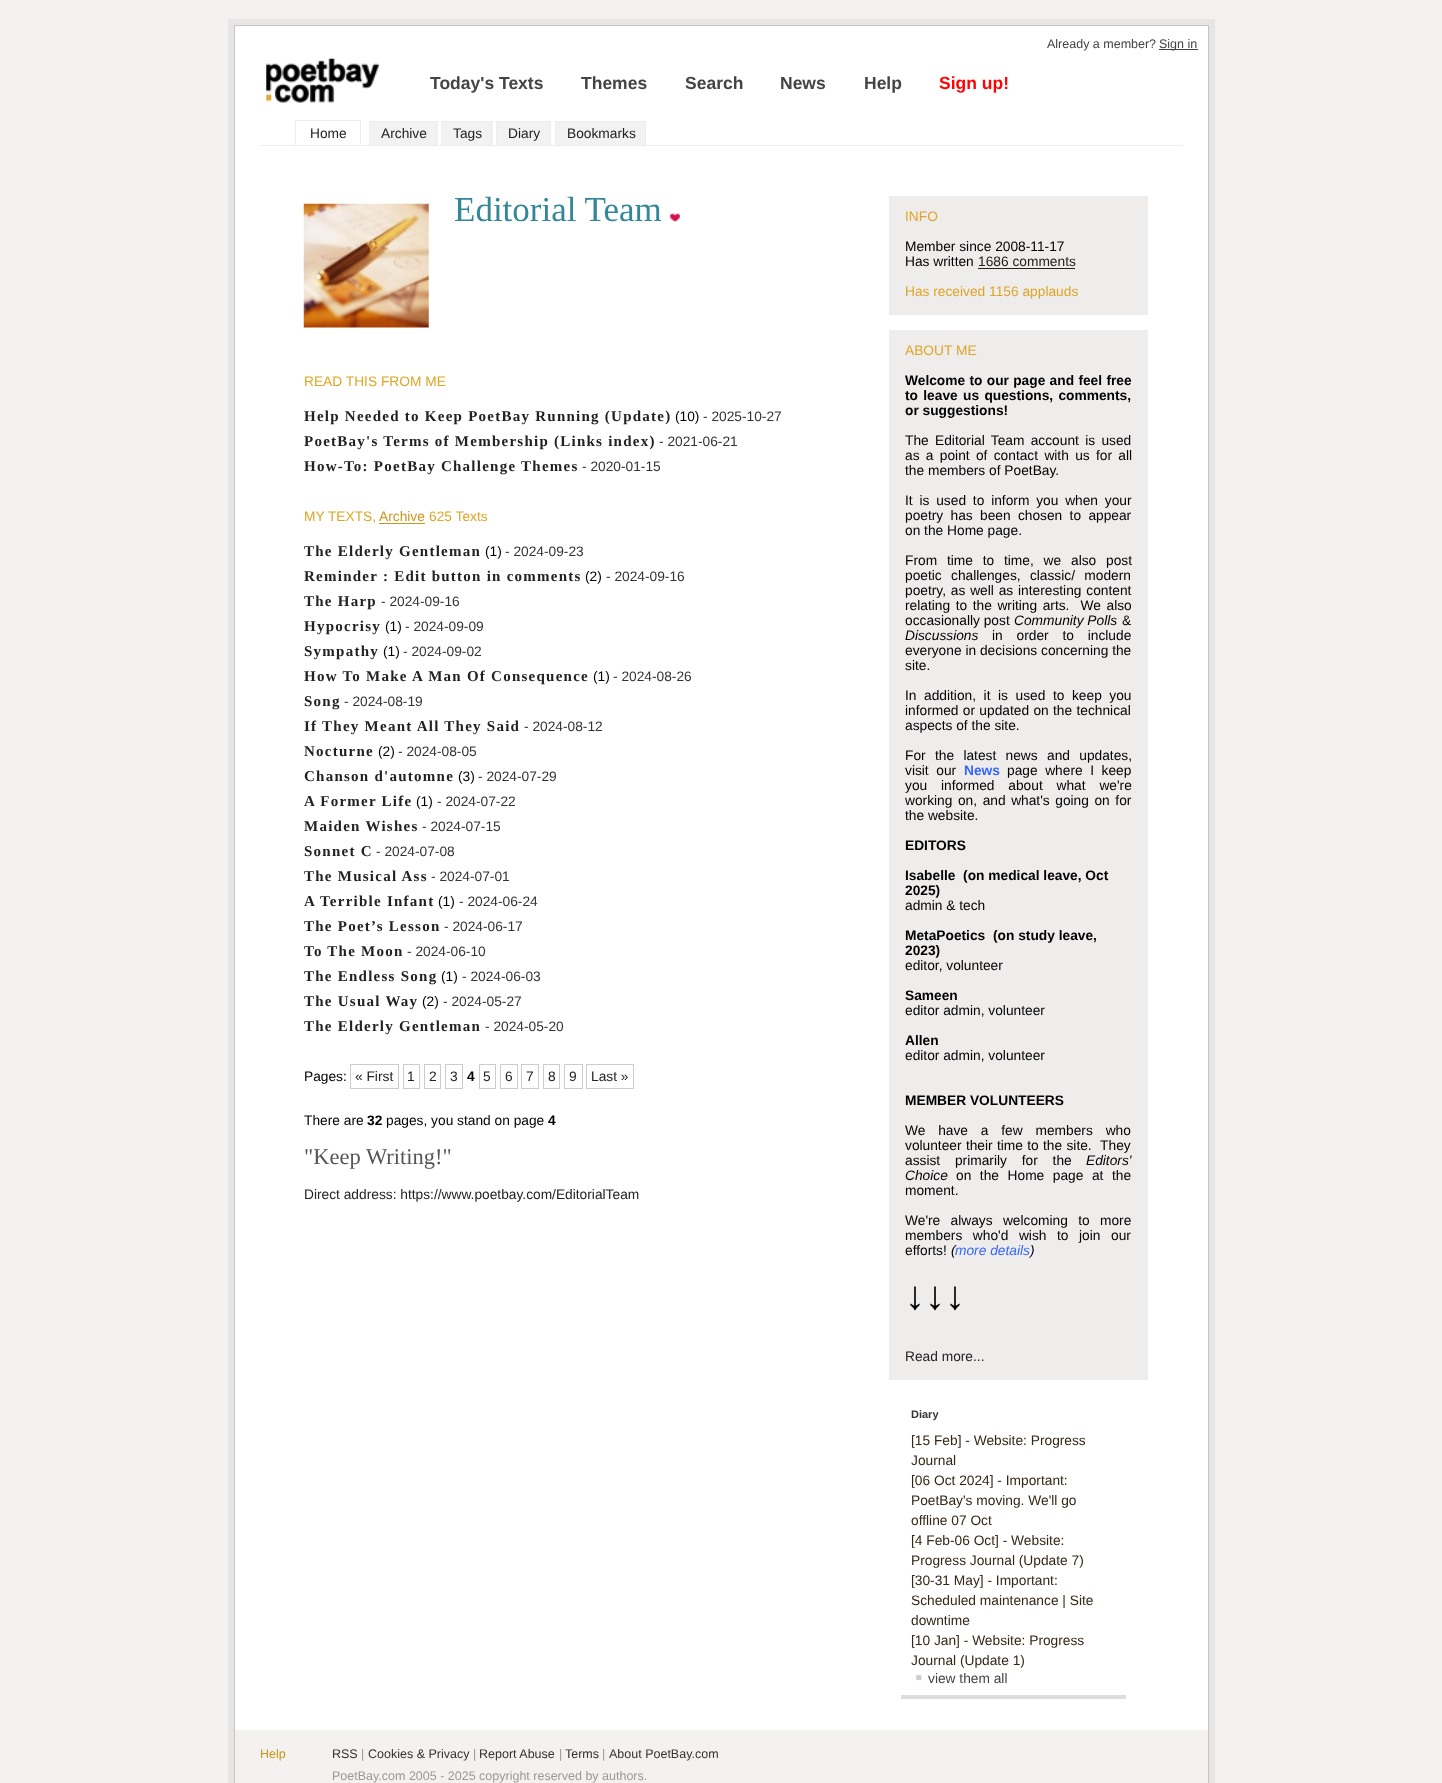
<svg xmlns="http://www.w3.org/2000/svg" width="1442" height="1783">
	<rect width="100%" height="100%" fill="#F4F2F0" />
	<rect x="231" y="22" width="981" height="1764" fill="none" stroke="#E8E5E5" stroke-width="6" />
	<rect x="235" y="26" width="973" height="1704" fill="#FFFFFF" />
	<rect x="234.5" y="25.5" width="974" height="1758" fill="none" stroke="#C4C4C4" />
	<text x="1047" y="48" font-family="Liberation Sans" font-size="12.5" fill="#444444">Already a member?</text>
	<rect x="1159" y="49" width="39" height="1" fill="#444444" />
	<text x="1159" y="48" font-family="Liberation Sans" font-size="12.5" fill="#444444">Sign in</text>
	<image x="266" y="57" width="113" height="46" href="assets/img1.png" />
	<g font-family="Liberation Sans" font-size="17.5" font-weight="700" fill="#444444">
		<text x="430" y="89">Today's Texts</text>
		<text x="581" y="89">Themes</text>
		<text x="685" y="89">Search</text>
		<text x="780" y="89">News</text>
		<text x="864" y="89">Help</text>
	</g>
	<text x="939" y="89" font-family="Liberation Sans" font-size="17.5" font-weight="700" fill="#FF0404">Sign up!</text>
	<rect x="260" y="145" width="923" height="1" fill="#EDEDED" />
	<text x="310" y="138" font-family="Liberation Sans" font-size="13.75" fill="#222222">Home</text>
	<rect x="295" y="120" width="66" height="1" fill="#EDEDED" />
	<rect x="360" y="120" width="1" height="25" fill="#EDEDED" />
	<rect x="360" y="144" width="1" height="1" fill="#FFFFFF" />
	<rect x="295" y="120" width="1" height="25" fill="#EEEEEE" />
	<rect x="370" y="122" width="68" height="23" fill="#F2F2F2" />
	<text x="381" y="138" font-family="Liberation Sans" font-size="13.75" fill="#222222">Archive</text>
	<rect x="369" y="121" width="69" height="1" fill="#EDEDED" />
	<rect x="436" y="121" width="1" height="24" fill="#EDEDED" />
	<rect x="369" y="121" width="1" height="24" fill="#EEEEEE" />
	<rect x="442" y="122" width="51" height="23" fill="#F2F2F2" />
	<text x="453" y="138" font-family="Liberation Sans" font-size="13.75" fill="#222222">Tags</text>
	<rect x="441" y="121" width="52" height="1" fill="#EDEDED" />
	<rect x="491" y="121" width="1" height="24" fill="#EDEDED" />
	<rect x="441" y="121" width="1" height="24" fill="#EEEEEE" />
	<rect x="497" y="122" width="53" height="23" fill="#F2F2F2" />
	<text x="508" y="138" font-family="Liberation Sans" font-size="13.75" fill="#222222">Diary</text>
	<rect x="496" y="121" width="55" height="1" fill="#EDEDED" />
	<rect x="550" y="121" width="1" height="24" fill="#EDEDED" />
	<rect x="496" y="121" width="1" height="24" fill="#EEEEEE" />
	<rect x="556" y="122" width="89" height="23" fill="#F2F2F2" />
	<text x="567" y="138" font-family="Liberation Sans" font-size="13.75" fill="#222222">Bookmarks</text>
	<rect x="555" y="121" width="91" height="1" fill="#EDEDED" />
	<rect x="645" y="121" width="1" height="24" fill="#EDEDED" />
	<rect x="555" y="121" width="1" height="24" fill="#EEEEEE" />
	<image x="303" y="203" width="126" height="125" href="assets/img2.png" />
	<text x="454" y="221" font-family="Liberation Serif" font-size="35" fill="#338799">Editorial Team</text>
	<image x="670" y="213" width="10" height="9" href="assets/img3.png" />
	<text x="304" y="386" font-family="Liberation Sans" font-size="13.75" fill="#DEA626">READ THIS FROM ME</text>
	<text x="304" y="421" font-family="Liberation Serif" font-size="15" font-weight="700" letter-spacing="1.25" fill="#222222">Help Needed to Keep PoetBay Running (Update)</text>
	<text x="675" y="421" font-family="Liberation Sans" font-size="13.75" fill="#000000">(10)</text>
	<text x="703" y="421" font-family="Liberation Sans" font-size="13.75" fill="#333333">- 2025-10-27</text>
	<text x="304" y="446" font-family="Liberation Serif" font-size="15" font-weight="700" letter-spacing="1.25" fill="#222222">PoetBay's Terms of Membership (Links index)</text>
	<text x="659" y="446" font-family="Liberation Sans" font-size="13.75" fill="#333333">- 2021-06-21</text>
	<text x="304" y="471" font-family="Liberation Serif" font-size="15" font-weight="700" letter-spacing="1.25" fill="#222222">How-To: PoetBay Challenge Themes</text>
	<text x="582" y="471" font-family="Liberation Sans" font-size="13.75" fill="#333333">- 2020-01-15</text>
	<text x="304" y="521" font-family="Liberation Sans" font-size="13.75" fill="#DEA626">MY TEXTS,</text>
	<text x="379" y="521" font-family="Liberation Sans" font-size="13.75" fill="#CA951B">Archive</text>
	<rect x="379" y="523" width="46" height="1" fill="#CA951B" />
	<text x="429" y="521" font-family="Liberation Sans" font-size="13.75" fill="#DEA626">625 Texts</text>
	<text x="304" y="556" font-family="Liberation Serif" font-size="15" font-weight="700" letter-spacing="1.25" fill="#222222">The Elderly Gentleman</text>
	<text x="485" y="556" font-family="Liberation Sans" font-size="13.75" fill="#000000">(1)</text>
	<text x="505" y="556" font-family="Liberation Sans" font-size="13.75" fill="#333333">- 2024-09-23</text>
	<text x="304" y="581" font-family="Liberation Serif" font-size="15" font-weight="700" letter-spacing="1.25" fill="#222222">Reminder : Edit button in comments</text>
	<text x="585" y="581" font-family="Liberation Sans" font-size="13.75" fill="#000000">(2)</text>
	<text x="606" y="581" font-family="Liberation Sans" font-size="13.75" fill="#333333">- 2024-09-16</text>
	<text x="304" y="606" font-family="Liberation Serif" font-size="15" font-weight="700" letter-spacing="1.25" fill="#222222">The Harp</text>
	<text x="381" y="606" font-family="Liberation Sans" font-size="13.75" fill="#333333">- 2024-09-16</text>
	<text x="304" y="631" font-family="Liberation Serif" font-size="15" font-weight="700" letter-spacing="1.25" fill="#222222">Hypocrisy</text>
	<text x="385" y="631" font-family="Liberation Sans" font-size="13.75" fill="#000000">(1)</text>
	<text x="405" y="631" font-family="Liberation Sans" font-size="13.75" fill="#333333">- 2024-09-09</text>
	<text x="304" y="656" font-family="Liberation Serif" font-size="15" font-weight="700" letter-spacing="1.25" fill="#222222">Sympathy</text>
	<text x="383" y="656" font-family="Liberation Sans" font-size="13.75" fill="#000000">(1)</text>
	<text x="403" y="656" font-family="Liberation Sans" font-size="13.75" fill="#333333">- 2024-09-02</text>
	<text x="304" y="681" font-family="Liberation Serif" font-size="15" font-weight="700" letter-spacing="1.25" fill="#222222">How To Make A Man Of Consequence</text>
	<text x="593" y="681" font-family="Liberation Sans" font-size="13.75" fill="#000000">(1)</text>
	<text x="613" y="681" font-family="Liberation Sans" font-size="13.75" fill="#333333">- 2024-08-26</text>
	<text x="304" y="706" font-family="Liberation Serif" font-size="15" font-weight="700" letter-spacing="1.25" fill="#222222">Song</text>
	<text x="344" y="706" font-family="Liberation Sans" font-size="13.75" fill="#333333">- 2024-08-19</text>
	<text x="304" y="731" font-family="Liberation Serif" font-size="15" font-weight="700" letter-spacing="1.25" fill="#222222">If They Meant All They Said</text>
	<text x="524" y="731" font-family="Liberation Sans" font-size="13.75" fill="#333333">- 2024-08-12</text>
	<text x="304" y="756" font-family="Liberation Serif" font-size="15" font-weight="700" letter-spacing="1.25" fill="#222222">Nocturne</text>
	<text x="378" y="756" font-family="Liberation Sans" font-size="13.75" fill="#000000">(2)</text>
	<text x="398" y="756" font-family="Liberation Sans" font-size="13.75" fill="#333333">- 2024-08-05</text>
	<text x="304" y="781" font-family="Liberation Serif" font-size="15" font-weight="700" letter-spacing="1.25" fill="#222222">Chanson d'automne</text>
	<text x="458" y="781" font-family="Liberation Sans" font-size="13.75" fill="#000000">(3)</text>
	<text x="478" y="781" font-family="Liberation Sans" font-size="13.75" fill="#333333">- 2024-07-29</text>
	<text x="304" y="806" font-family="Liberation Serif" font-size="15" font-weight="700" letter-spacing="1.25" fill="#222222">A Former Life</text>
	<text x="416" y="806" font-family="Liberation Sans" font-size="13.75" fill="#000000">(1)</text>
	<text x="437" y="806" font-family="Liberation Sans" font-size="13.75" fill="#333333">- 2024-07-22</text>
	<text x="304" y="831" font-family="Liberation Serif" font-size="15" font-weight="700" letter-spacing="1.25" fill="#222222">Maiden Wishes</text>
	<text x="422" y="831" font-family="Liberation Sans" font-size="13.75" fill="#333333">- 2024-07-15</text>
	<text x="304" y="856" font-family="Liberation Serif" font-size="15" font-weight="700" letter-spacing="1.25" fill="#222222">Sonnet C</text>
	<text x="376" y="856" font-family="Liberation Sans" font-size="13.75" fill="#333333">- 2024-07-08</text>
	<text x="304" y="881" font-family="Liberation Serif" font-size="15" font-weight="700" letter-spacing="1.25" fill="#222222">The Musical Ass</text>
	<text x="431" y="881" font-family="Liberation Sans" font-size="13.75" fill="#333333">- 2024-07-01</text>
	<text x="304" y="906" font-family="Liberation Serif" font-size="15" font-weight="700" letter-spacing="1.25" fill="#222222">A Terrible Infant</text>
	<text x="438" y="906" font-family="Liberation Sans" font-size="13.75" fill="#000000">(1)</text>
	<text x="459" y="906" font-family="Liberation Sans" font-size="13.75" fill="#333333">- 2024-06-24</text>
	<text x="304" y="931" font-family="Liberation Serif" font-size="15" font-weight="700" letter-spacing="1.25" fill="#222222">The Poet’s Lesson</text>
	<text x="444" y="931" font-family="Liberation Sans" font-size="13.75" fill="#333333">- 2024-06-17</text>
	<text x="304" y="956" font-family="Liberation Serif" font-size="15" font-weight="700" letter-spacing="1.25" fill="#222222">To The Moon</text>
	<text x="407" y="956" font-family="Liberation Sans" font-size="13.75" fill="#333333">- 2024-06-10</text>
	<text x="304" y="981" font-family="Liberation Serif" font-size="15" font-weight="700" letter-spacing="1.25" fill="#222222">The Endless Song</text>
	<text x="441" y="981" font-family="Liberation Sans" font-size="13.75" fill="#000000">(1)</text>
	<text x="462" y="981" font-family="Liberation Sans" font-size="13.75" fill="#333333">- 2024-06-03</text>
	<text x="304" y="1006" font-family="Liberation Serif" font-size="15" font-weight="700" letter-spacing="1.25" fill="#222222">The Usual Way</text>
	<text x="422" y="1006" font-family="Liberation Sans" font-size="13.75" fill="#000000">(2)</text>
	<text x="443" y="1006" font-family="Liberation Sans" font-size="13.75" fill="#333333">- 2024-05-27</text>
	<text x="304" y="1031" font-family="Liberation Serif" font-size="15" font-weight="700" letter-spacing="1.25" fill="#222222">The Elderly Gentleman</text>
	<text x="485" y="1031" font-family="Liberation Sans" font-size="13.75" fill="#333333">- 2024-05-20</text>
	<text x="304" y="1081" font-family="Liberation Sans" font-size="13.75" fill="#000000">Pages:</text>
	<rect x="350.5" y="1064.5" width="48" height="24" fill="none" stroke="#CCCCCC" />
	<text x="355" y="1081" font-family="Liberation Sans" font-size="13.75" fill="#222222">« First</text>
	<rect x="403.5" y="1064.5" width="16" height="24" fill="none" stroke="#CCCCCC" />
	<text x="407" y="1081" font-family="Liberation Sans" font-size="13.75" fill="#222222">1</text>
	<rect x="424.5" y="1064.5" width="16" height="24" fill="none" stroke="#CCCCCC" />
	<text x="429" y="1081" font-family="Liberation Sans" font-size="13.75" fill="#222222">2</text>
	<rect x="445.5" y="1064.5" width="17" height="24" fill="none" stroke="#CCCCCC" />
	<text x="450" y="1081" font-family="Liberation Sans" font-size="13.75" fill="#222222">3</text>
	<text x="467" y="1081" font-family="Liberation Sans" font-size="13.75" font-weight="700" fill="#000000">4</text>
	<rect x="479.5" y="1064.5" width="16" height="24" fill="none" stroke="#CCCCCC" />
	<text x="483" y="1081" font-family="Liberation Sans" font-size="13.75" fill="#222222">5</text>
	<rect x="500.5" y="1064.5" width="17" height="24" fill="none" stroke="#CCCCCC" />
	<text x="505" y="1081" font-family="Liberation Sans" font-size="13.75" fill="#222222">6</text>
	<rect x="521.5" y="1064.5" width="17" height="24" fill="none" stroke="#CCCCCC" />
	<text x="526" y="1081" font-family="Liberation Sans" font-size="13.75" fill="#222222">7</text>
	<rect x="543.5" y="1064.5" width="16" height="24" fill="none" stroke="#CCCCCC" />
	<text x="548" y="1081" font-family="Liberation Sans" font-size="13.75" fill="#222222">8</text>
	<rect x="564.5" y="1064.5" width="18" height="24" fill="none" stroke="#CCCCCC" />
	<text x="569" y="1081" font-family="Liberation Sans" font-size="13.75" fill="#222222">9</text>
	<rect x="586.5" y="1064.5" width="47" height="24" fill="none" stroke="#CCCCCC" />
	<text x="591" y="1081" font-family="Liberation Sans" font-size="13.75" fill="#222222">Last »</text>
	<text x="304" y="1125" font-family="Liberation Sans" font-size="13.75" fill="#000000">There are</text>
	<text x="367" y="1125" font-family="Liberation Sans" font-size="13.75" font-weight="700" fill="#000000">32</text>
	<text x="386" y="1125" font-family="Liberation Sans" font-size="13.75" fill="#000000">pages, you stand on page</text>
	<text x="548" y="1125" font-family="Liberation Sans" font-size="13.75" font-weight="700" fill="#000000">4</text>
	<text x="304" y="1164" font-family="Liberation Serif" font-size="22.5" fill="#555555">"Keep Writing!"</text>
	<text x="304" y="1199" font-family="Liberation Sans" font-size="13.75" fill="#222222">Direct address: https://www.poetbay.com/EditorialTeam</text>
	<rect x="889" y="196" width="259" height="119" fill="#EFECEC" />
	<text x="905" y="221" font-family="Liberation Sans" font-size="13.75" fill="#DEA626">INFO</text>
	<g font-family="Liberation Sans" font-size="13.75" fill="#000000">
		<text x="905" y="251">Member since 2008-11-17</text>
		<text x="905" y="266">Has written</text>
	</g>
	<text x="978" y="266" font-family="Liberation Sans" font-size="13.75" fill="#222222">1686 comments</text>
	<rect x="978" y="268" width="97" height="1" fill="#222222" />
	<text x="905" y="296" font-family="Liberation Sans" font-size="13.75" fill="#DEA626">Has received 1156 applauds</text>
	<rect x="889" y="330" width="259" height="1050" fill="#EFECEC" />
	<text x="905" y="355" font-family="Liberation Sans" font-size="13.75" fill="#DEA626">ABOUT ME</text>
	<g font-family="Liberation Sans" font-size="13.75" font-weight="700" fill="#000000">
		<text x="905" y="385" word-spacing="0.5">Welcome to our page and feel free</text>
		<text x="905" y="400" word-spacing="1.5">to leave us questions, comments,</text>
		<text x="905" y="415">or suggestions!</text>
	</g>
	<g font-family="Liberation Sans" font-size="13.75" fill="#000000">
		<text x="905" y="445" word-spacing="2.5">The Editorial Team account is used</text>
		<text x="905" y="460" word-spacing="2.5">as a point of contact with us for all</text>
		<text x="905" y="475">the members of PoetBay.</text>
		<text x="905" y="505" word-spacing="3">It is used to inform you when your</text>
		<text x="905" y="520" word-spacing="3.5">poetry has been chosen to appear</text>
		<text x="905" y="535">on the Home page.</text>
		<text x="905" y="565" word-spacing="6">From time to time, we also post</text>
		<text x="905" y="580" word-spacing="5.5">poetic challenges, classic/ modern</text>
		<text x="905" y="595" word-spacing="1">poetry, as well as interesting content</text>
		<text x="905" y="610" word-spacing="1.75" xml:space="preserve">relating to the writing arts.  We also</text>
		<text x="905" y="625">occasionally post</text>
	</g>
	<text x="1014" y="625" font-family="Liberation Sans" font-size="13.75" font-style="italic" fill="#000000">Community Polls</text>
	<text x="1122" y="625" font-family="Liberation Sans" font-size="13.75" fill="#000000">&amp;</text>
	<text x="905" y="640" font-family="Liberation Sans" font-size="13.75" font-style="italic" fill="#000000">Discussions</text>
	<g font-family="Liberation Sans" font-size="13.75" fill="#000000">
		<text x="992" y="640" word-spacing="10">in order to include</text>
		<text x="905" y="655">everyone in decisions concerning the</text>
		<text x="905" y="670">site.</text>
		<text x="905" y="700" word-spacing="3.75">In addition, it is used to keep you</text>
		<text x="905" y="715" word-spacing="0.5">informed or updated on the technical</text>
		<text x="905" y="730">aspects of the site.</text>
		<text x="905" y="760" word-spacing="5.5">For the latest news and updates,</text>
		<text x="905" y="775" word-spacing="3.75">visit our</text>
	</g>
	<text x="964" y="775" font-family="Liberation Sans" font-size="13.75" font-weight="700" fill="#3366FF">News</text>
	<g font-family="Liberation Sans" font-size="13.75" fill="#000000">
		<text x="1007" y="775" word-spacing="3.75">page where I keep</text>
		<text x="905" y="790" word-spacing="10">you informed about what we're</text>
		<text x="905" y="805" word-spacing="1.75">working on, and what's going on for</text>
		<text x="905" y="820">the website.</text>
	</g>
	<g font-family="Liberation Sans" font-size="13.75" font-weight="700" fill="#000000">
		<text x="905" y="850">EDITORS</text>
		<text x="905" y="880" xml:space="preserve">Isabelle  (on medical leave, Oct</text>
		<text x="905" y="895">2025)</text>
	</g>
	<text x="905" y="910" font-family="Liberation Sans" font-size="13.75" fill="#000000">admin &amp; tech</text>
	<g font-family="Liberation Sans" font-size="13.75" font-weight="700" fill="#000000">
		<text x="905" y="940">MetaPoetics</text>
		<text x="993" y="940">(on study leave,</text>
		<text x="905" y="955">2023)</text>
	</g>
	<text x="905" y="970" font-family="Liberation Sans" font-size="13.75" fill="#000000">editor, volunteer</text>
	<text x="905" y="1000" font-family="Liberation Sans" font-size="13.75" font-weight="700" fill="#000000">Sameen</text>
	<text x="905" y="1015" font-family="Liberation Sans" font-size="13.75" fill="#000000">editor admin, volunteer</text>
	<text x="905" y="1045" font-family="Liberation Sans" font-size="13.75" font-weight="700" fill="#000000">Allen</text>
	<text x="905" y="1060" font-family="Liberation Sans" font-size="13.75" fill="#000000">editor admin, volunteer</text>
	<text x="905" y="1105" font-family="Liberation Sans" font-size="13.75" font-weight="700" fill="#000000">MEMBER VOLUNTEERS</text>
	<g font-family="Liberation Sans" font-size="13.75" fill="#000000">
		<text x="905" y="1135" word-spacing="9">We have a few members who</text>
		<text x="905" y="1150" word-spacing="0.5" xml:space="preserve">volunteer their time to the site.  They</text>
		<text x="905" y="1165" word-spacing="11">assist primarily for the</text>
	</g>
	<g font-family="Liberation Sans" font-size="13.75" font-style="italic" fill="#000000">
		<text x="1086" y="1165">Editors'</text>
		<text x="905" y="1180">Choice</text>
	</g>
	<g font-family="Liberation Sans" font-size="13.75" fill="#000000">
		<text x="956" y="1180" word-spacing="4.75">on the Home page at the</text>
		<text x="905" y="1195">moment.</text>
		<text x="905" y="1225" word-spacing="6.5">We're always welcoming to more</text>
		<text x="905" y="1240" word-spacing="6.75">members who'd wish to join our</text>
		<text x="905" y="1255">efforts!</text>
	</g>
	<text x="951" y="1255" font-family="Liberation Sans" font-size="13.75" font-style="italic" fill="#000000">(</text>
	<text x="955" y="1255" font-family="Liberation Sans" font-size="13.75" font-style="italic" fill="#3366FF">more details</text>
	<text x="1030" y="1255" font-family="Liberation Sans" font-size="13.75" font-style="italic" fill="#000000">)</text>
	<text x="905" y="1309" font-family="Liberation Sans" font-size="40" font-weight="700" fill="#000000">↓↓↓</text>
	<text x="905" y="1361" font-family="Liberation Sans" font-size="13.75" fill="#222222">Read more...</text>
	<rect x="901" y="1695" width="225" height="4" fill="#DDDDDD" />
	<text x="911" y="1418" font-family="Liberation Sans" font-size="11" font-weight="700" fill="#333333">Diary</text>
	<g font-family="Liberation Sans" font-size="13.75" fill="#352716">
		<text x="911" y="1445">[15 Feb] - Website: Progress</text>
		<text x="911" y="1465">Journal</text>
		<text x="911" y="1485">[06 Oct 2024] - Important:</text>
		<text x="911" y="1505">PoetBay's moving. We'll go</text>
		<text x="911" y="1525">offline 07 Oct</text>
		<text x="911" y="1545">[4 Feb-06 Oct] - Website:</text>
		<text x="911" y="1565">Progress Journal (Update 7)</text>
		<text x="911" y="1585">[30-31 May] - Important:</text>
		<text x="911" y="1605">Scheduled maintenance | Site</text>
		<text x="911" y="1625">downtime</text>
		<text x="911" y="1645">[10 Jan] - Website: Progress</text>
		<text x="911" y="1665">Journal (Update 1)</text>
	</g>
	<image x="916" y="1675" width="6" height="6" href="assets/img4.png" />
	<text x="928" y="1683" font-family="Liberation Sans" font-size="13.75" fill="#444444">view them all</text>
	<text x="260" y="1758" font-family="Liberation Sans" font-size="12.5" fill="#CA951B">Help</text>
	<text x="332" y="1758" font-family="Liberation Sans" font-size="12.5" fill="#333333">RSS</text>
	<text x="361" y="1758" font-family="Liberation Sans" font-size="12.5" fill="#999999">|</text>
	<text x="368" y="1758" font-family="Liberation Sans" font-size="12.5" fill="#333333">Cookies &amp; Privacy</text>
	<text x="473" y="1758" font-family="Liberation Sans" font-size="12.5" fill="#999999">|</text>
	<text x="479" y="1758" font-family="Liberation Sans" font-size="12.5" fill="#333333">Report Abuse</text>
	<text x="559" y="1758" font-family="Liberation Sans" font-size="12.5" fill="#999999">|</text>
	<text x="565" y="1758" font-family="Liberation Sans" font-size="12.5" fill="#333333">Terms</text>
	<text x="602" y="1758" font-family="Liberation Sans" font-size="12.5" fill="#999999">|</text>
	<text x="609" y="1758" font-family="Liberation Sans" font-size="12.5" fill="#333333">About PoetBay.com</text>
	<text x="332" y="1780" font-family="Liberation Sans" font-size="12.5" fill="#999999">PoetBay.com 2005 - 2025 copyright reserved by authors.</text>
</svg>
